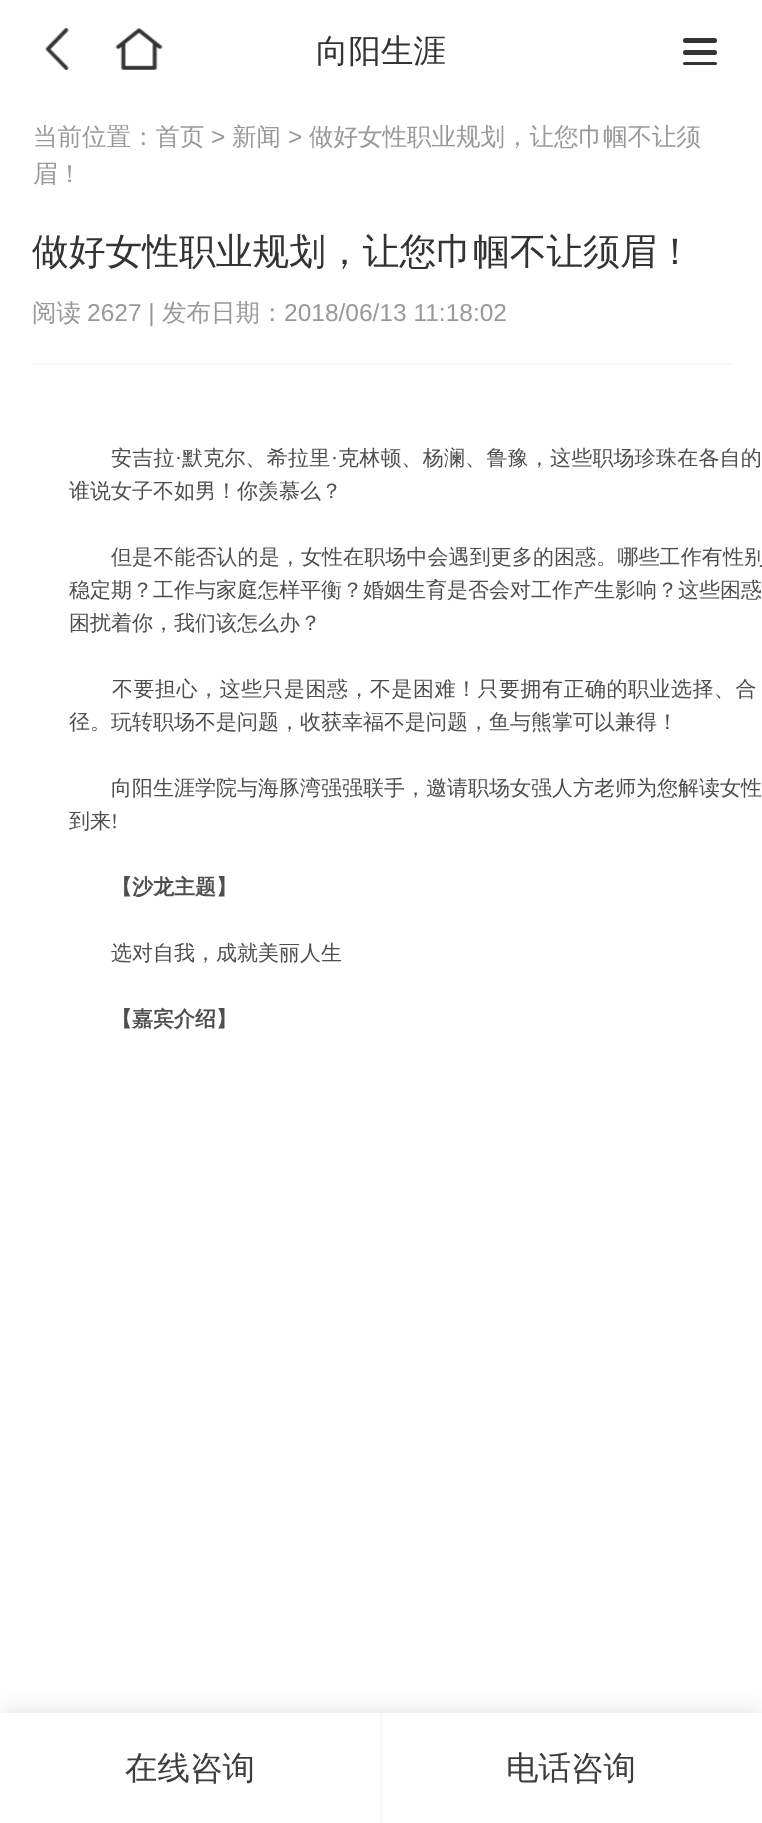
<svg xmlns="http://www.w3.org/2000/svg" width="762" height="1823">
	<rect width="100%" height="100%" fill="#FFFFFF" />
	<image x="45" y="28" width="24" height="42" href="assets/img1.png" />
	<image x="115" y="28" width="48" height="42" href="assets/img2.png" />
	<text x="316" y="62" font-family="WenQuanYi Zen Hei" font-size="32.5" font-weight="500" fill="#333333">向阳生涯</text>
	<rect x="683" y="38" width="34" height="5" rx="2.5" fill="#333333" />
	<rect x="683" y="50" width="34" height="5" rx="2.5" fill="#333333" />
	<rect x="683" y="62" width="34" height="3" rx="1.5" fill="#333333" />
	<text x="33" y="145" font-family="WenQuanYi Zen Hei" font-size="24.5" font-weight="500" fill="#999999">当前位置：首页</text>
	<text x="211" y="145" font-family="Liberation Sans" font-size="24.5" fill="#999999">&gt;</text>
	<text x="232" y="145" font-family="WenQuanYi Zen Hei" font-size="24.5" font-weight="500" fill="#999999">新闻</text>
	<text x="288" y="145" font-family="Liberation Sans" font-size="24.5" fill="#999999">&gt;</text>
	<g font-family="WenQuanYi Zen Hei" font-size="24.5" font-weight="500" fill="#999999">
		<text x="309" y="145">做好女性职业规划，让您巾帼不让须</text>
		<text x="33" y="182">眉！</text>
	</g>
	<rect x="32" y="363" width="699" height="2" fill="#F6F6F6" />
	<text x="32" y="264" font-family="WenQuanYi Zen Hei" font-size="36.75" font-weight="500" fill="#333333">做好女性职业规划，让您巾帼不让须眉！</text>
	<text x="32" y="321" font-family="WenQuanYi Zen Hei" font-size="24.5" font-weight="500" fill="#999999">阅读</text>
	<text x="87" y="321" font-family="Liberation Sans" font-size="24.5" fill="#999999">2627 |</text>
	<text x="162" y="321" font-family="WenQuanYi Zen Hei" font-size="24.5" font-weight="500" fill="#999999">发布日期：</text>
	<text x="284" y="321" font-family="Liberation Sans" font-size="24.5" fill="#999999">2018/06/13 11:18:02</text>
	<text x="111" y="465" font-family="WenQuanYi Zen Hei" font-size="21" font-weight="500" letter-spacing="0.2" fill="#4E4E4E">安吉拉</text>
	<text x="175" y="465" font-family="Liberation Serif" font-size="21" letter-spacing="0.2" fill="#4E4E4E">·</text>
	<text x="182" y="465" font-family="WenQuanYi Zen Hei" font-size="21" font-weight="500" letter-spacing="0.2" fill="#4E4E4E">默克尔、希拉里</text>
	<text x="331" y="465" font-family="Liberation Serif" font-size="21" letter-spacing="0.2" fill="#4E4E4E">·</text>
	<text x="338" y="465" font-family="WenQuanYi Zen Hei" font-size="21" font-weight="500" letter-spacing="0.2" fill="#4E4E4E">克林顿、杨澜、鲁豫，这些职场珍珠在各自的</text>
	<text x="69" y="498" font-family="WenQuanYi Zen Hei" font-size="21" font-weight="500" fill="#4E4E4E">谁说女子不如男！你羡慕么？</text>
	<text x="111" y="564" font-family="WenQuanYi Zen Hei" font-size="21" font-weight="500" letter-spacing="0.1" fill="#4E4E4E">但是不能否认的是，女性在职场中会遇到更多的困惑。哪些工作有性别</text>
	<g font-family="WenQuanYi Zen Hei" font-size="21" font-weight="500" fill="#4E4E4E">
		<text x="69" y="597">稳定期？工作与家庭怎样平衡？婚姻生育是否会对工作产生影响？这些困惑</text>
		<text x="69" y="630">困扰着你，我们该怎么办？</text>
	</g>
	<text x="112" y="696" font-family="WenQuanYi Zen Hei" font-size="21" font-weight="500" letter-spacing="0.5" fill="#4E4E4E">不要担心，这些只是困惑，不是困难！只要拥有正确的职业选择、合</text>
	<g font-family="WenQuanYi Zen Hei" font-size="21" font-weight="500" fill="#4E4E4E">
		<text x="69" y="729">径。玩转职场不是问题，收获幸福不是问题，鱼与熊掌可以兼得！</text>
		<text x="111" y="795">向阳生涯学院与海豚湾强强联手，邀请职场女强人方老师为您解读女性</text>
		<text x="69" y="828">到来</text>
	</g>
	<text x="111" y="828" font-family="Liberation Serif" font-size="21" fill="#4E4E4E">!</text>
	<text x="111" y="894" font-family="WenQuanYi Zen Hei" font-size="21" font-weight="700" fill="#4E4E4E">【沙龙主题】</text>
	<text x="111" y="960" font-family="WenQuanYi Zen Hei" font-size="21" font-weight="500" fill="#4E4E4E">选对自我，成就美丽人生</text>
	<text x="111" y="1026" font-family="WenQuanYi Zen Hei" font-size="21" font-weight="700" fill="#4E4E4E">【嘉宾介绍】</text>
	<rect x="0" y="1707" width="762" height="111" fill="#000000" fill-opacity="0.08" filter="blur(9px)" />
	<rect x="0" y="1713" width="762" height="110" fill="#FFFFFF" />
	<text x="125" y="1779" font-family="WenQuanYi Zen Hei" font-size="32.5" font-weight="500" fill="#3D3D3D">在线咨询</text>
	<rect x="380" y="1713" width="2" height="110" fill="#F7F8FA" />
	<text x="506" y="1779" font-family="WenQuanYi Zen Hei" font-size="32.5" font-weight="500" fill="#3D3D3D">电话咨询</text>
</svg>
